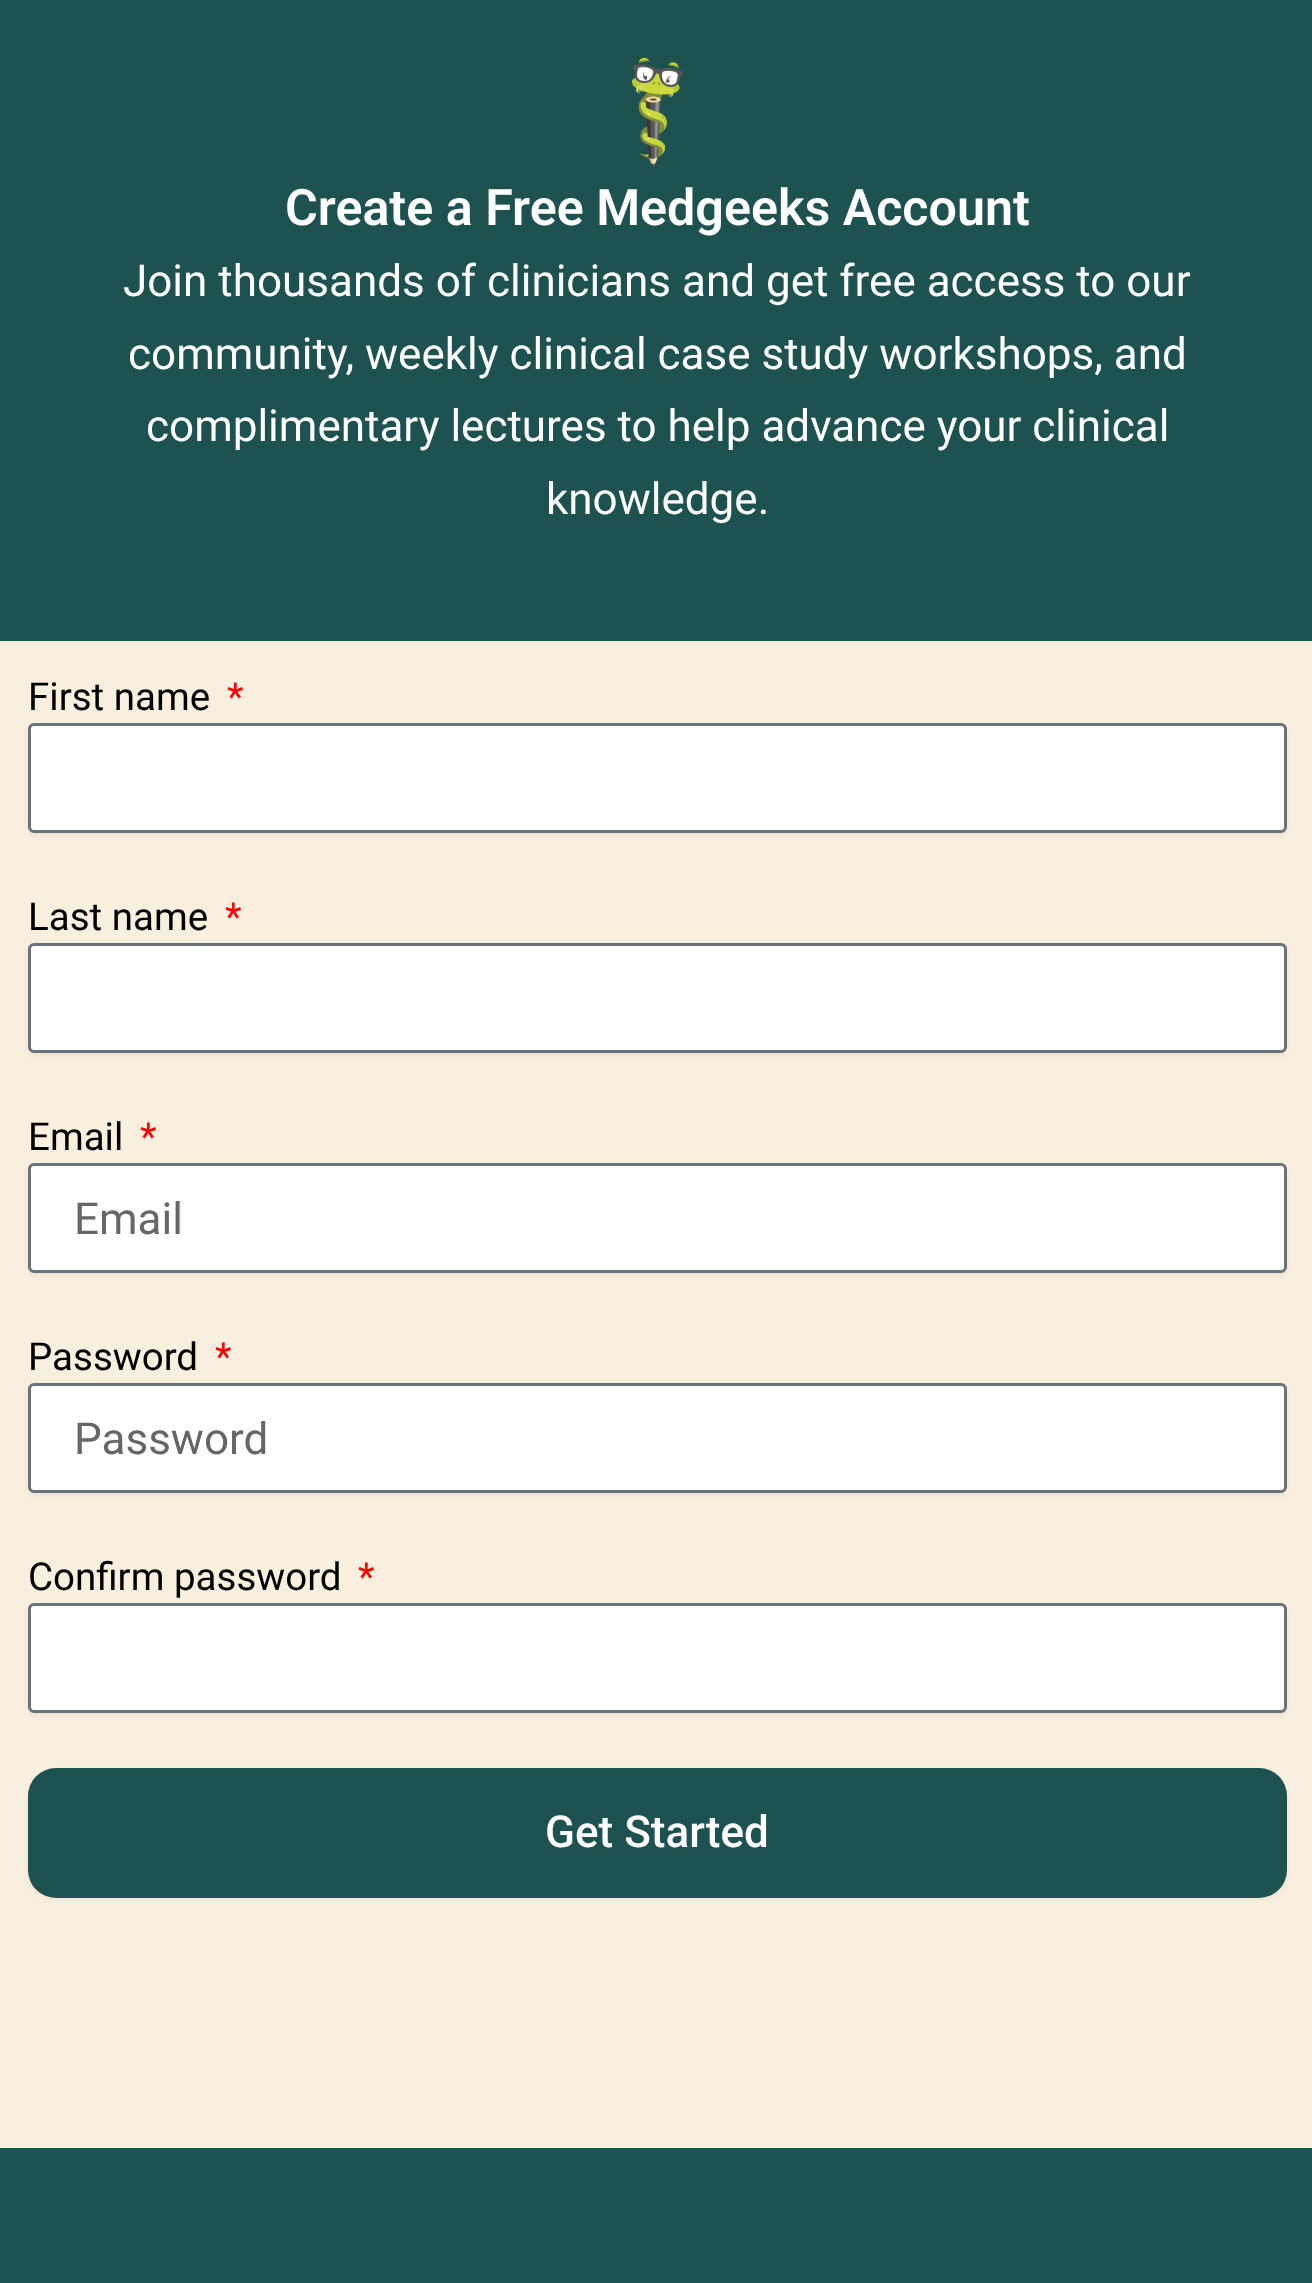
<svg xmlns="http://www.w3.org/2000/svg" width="1312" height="2283">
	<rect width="100%" height="100%" fill="#1E5251" />
	<image x="632" y="57" width="51" height="111" href="assets/img1.png" />
	<text x="285" y="225" font-family="Roboto" font-size="50.2" font-weight="600" fill="#FFFFFF">Create a Free Medgeeks Account</text>
	<g font-family="Roboto" font-size="44" fill="#FFFFFF">
		<text x="123" y="296">Join thousands of clinicians and get free access to our</text>
		<text x="128" y="369">community, weekly clinical case study workshops, and</text>
		<text x="146" y="441">complimentary lectures to help advance your clinical</text>
		<text x="546" y="514">knowledge.</text>
	</g>
	<rect x="0" y="641" width="1312" height="1507" fill="#F8EFDF" />
	<text x="28" y="710" font-family="Roboto" font-size="38.5" fill="#000000">First name</text>
	<text x="227" y="710" font-family="Roboto" font-size="38.5" fill="#FF0000">*</text>
	<rect x="28" y="726" width="1259" height="110" rx="6" fill="#000000" fill-opacity="0.05" filter="blur(3px)" />
	<rect x="29.5" y="724.5" width="1256" height="107" rx="4.5" fill="#FFFFFF" stroke="#69727D" stroke-width="3" />
	<text x="28" y="930" font-family="Roboto" font-size="38.5" fill="#000000">Last name</text>
	<text x="225" y="930" font-family="Roboto" font-size="38.5" fill="#FF0000">*</text>
	<rect x="28" y="946" width="1259" height="110" rx="6" fill="#000000" fill-opacity="0.05" filter="blur(3px)" />
	<rect x="29.5" y="944.5" width="1256" height="107" rx="4.5" fill="#FFFFFF" stroke="#69727D" stroke-width="3" />
	<text x="28" y="1150" font-family="Roboto" font-size="38.5" fill="#000000">Email</text>
	<text x="140" y="1150" font-family="Roboto" font-size="38.5" fill="#FF0000">*</text>
	<rect x="28" y="1166" width="1259" height="110" rx="6" fill="#000000" fill-opacity="0.05" filter="blur(3px)" />
	<rect x="29.5" y="1164.5" width="1256" height="107" rx="4.5" fill="#FFFFFF" stroke="#69727D" stroke-width="3" />
	<text x="74" y="1234" font-family="Roboto" font-size="44" fill="#666666">Email</text>
	<text x="28" y="1370" font-family="Roboto" font-size="38.5" fill="#000000">Password</text>
	<text x="215" y="1370" font-family="Roboto" font-size="38.5" fill="#FF0000">*</text>
	<rect x="28" y="1386" width="1259" height="110" rx="6" fill="#000000" fill-opacity="0.05" filter="blur(3px)" />
	<rect x="29.5" y="1384.5" width="1256" height="107" rx="4.5" fill="#FFFFFF" stroke="#69727D" stroke-width="3" />
	<text x="74" y="1454" font-family="Roboto" font-size="44" fill="#666666">Password</text>
	<text x="28" y="1590" font-family="Roboto" font-size="38.5" fill="#000000">Confirm password</text>
	<text x="358" y="1590" font-family="Roboto" font-size="38.5" fill="#FF0000">*</text>
	<rect x="28" y="1606" width="1259" height="110" rx="6" fill="#000000" fill-opacity="0.05" filter="blur(3px)" />
	<rect x="29.5" y="1604.5" width="1256" height="107" rx="4.5" fill="#FFFFFF" stroke="#69727D" stroke-width="3" />
	<rect x="28" y="1771" width="1259" height="129" rx="28" fill="#000000" fill-opacity="0.05" filter="blur(3px)" />
	<rect x="28" y="1768" width="1259" height="130" rx="28" fill="#1E5251" />
	<text x="545" y="1847" font-family="Roboto" font-size="44" font-weight="500" fill="#FFFFFF">Get Started</text>
</svg>
